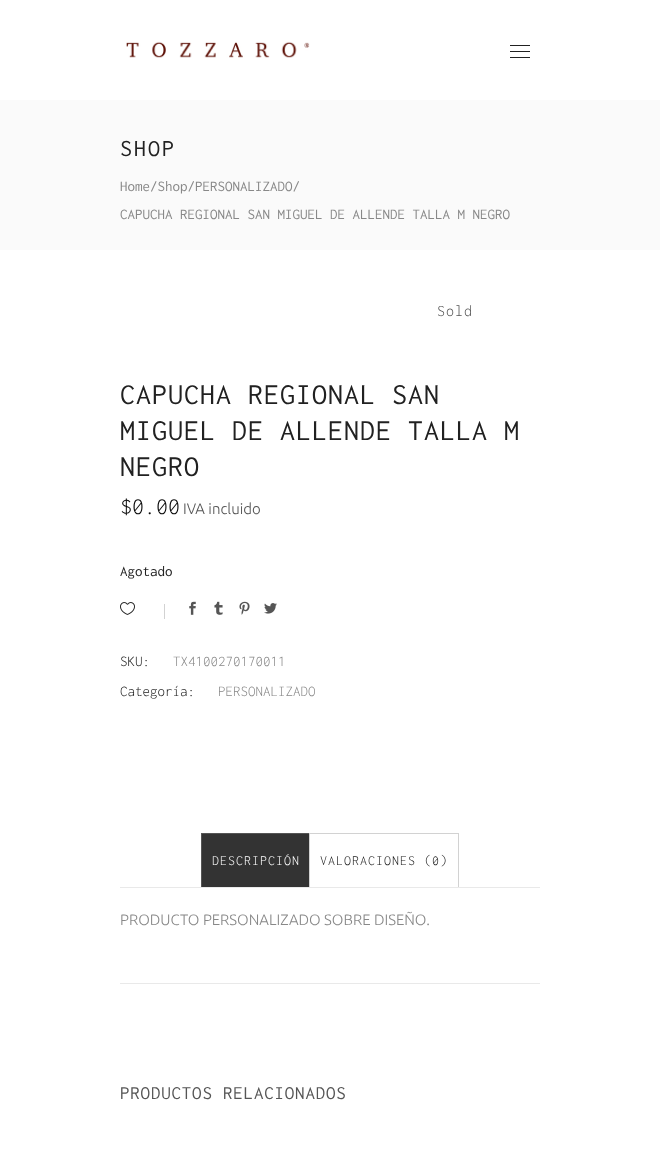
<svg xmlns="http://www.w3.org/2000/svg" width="660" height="1150">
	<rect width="100%" height="100%" fill="#FFFFFF" />
	<image x="126" y="41" width="184" height="17" href="assets/img1.png" />
	<rect x="510" y="51" width="20" height="1" fill="#212121" />
	<rect x="510" y="45" width="20" height="1" fill="#212121" />
	<rect x="510" y="57" width="20" height="1" fill="#212121" />
	<rect x="0" y="100" width="660" height="150" fill="#FAFAFA" />
	<text x="120" y="156" font-family="Inconsolata" font-size="24" letter-spacing="2" fill="#212121">SHOP</text>
	<g font-family="Inconsolata" font-size="15" fill="#888888">
		<text x="120" y="191">Home/Shop/PERSONALIZADO/</text>
		<text x="120" y="219">CAPUCHA REGIONAL SAN MIGUEL DE ALLENDE TALLA M NEGRO</text>
	</g>
	<text x="437" y="316" font-family="Inconsolata" font-size="16" font-weight="300" letter-spacing="1" fill="#555555">Sold</text>
	<g font-family="Inconsolata" font-size="30" letter-spacing="1" fill="#212121">
		<text x="120" y="404">CAPUCHA REGIONAL SAN</text>
		<text x="120" y="440">MIGUEL DE ALLENDE TALLA M</text>
		<text x="120" y="476">NEGRO</text>
	</g>
	<text x="120" y="514" font-family="Inconsolata" font-size="24" font-weight="300" fill="#080808">$0.00</text>
	<text x="183" y="514" font-family="Ubuntu" font-size="15" font-weight="300" fill="#555555">IVA incluido</text>
	<text x="120" y="576" font-family="Inconsolata" font-size="15" fill="#212121">Agotado</text>
	<image x="120" y="602" width="15" height="13" href="assets/img2.png" />
	<rect x="164" y="604" width="1" height="15" fill="#D2D2D2" />
	<image x="189" y="601" width="7" height="14" href="assets/img3.png" />
	<image x="214" y="601" width="9" height="14" href="assets/img4.png" />
	<image x="239" y="601" width="11" height="14" href="assets/img5.png" />
	<image x="264" y="603" width="13" height="11" href="assets/img6.png" />
	<text x="120" y="666" font-family="Inconsolata" font-size="15" font-weight="300" fill="#212121">SKU:</text>
	<text x="173" y="666" font-family="Inconsolata" font-size="15" font-weight="300" fill="#888888">TX4100270170011</text>
	<text x="120" y="696" font-family="Inconsolata" font-size="15" font-weight="300" fill="#212121">Categoría:</text>
	<text x="218" y="696" font-family="Inconsolata" font-size="15" font-weight="300" fill="#888888">PERSONALIZADO</text>
	<rect x="120" y="887" width="420" height="1" fill="#E9E9E9" />
	<rect x="201" y="833" width="109" height="1" fill="#555555" />
	<rect x="201" y="833" width="1" height="54" fill="#555555" />
	<rect x="202" y="834" width="107" height="53" fill="#333333" />
	<text x="212" y="865" font-family="Inconsolata" font-size="14" font-weight="300" letter-spacing="1" fill="#FFFFFF">DESCRIPCIÓN</text>
	<rect x="309" y="833" width="150" height="1" fill="#D2D2D2" />
	<rect x="458" y="833" width="1" height="54" fill="#D2D2D2" />
	<rect x="309" y="833" width="1" height="54" fill="#D2D2D2" />
	<text x="320" y="865" font-family="Inconsolata" font-size="14" font-weight="300" letter-spacing="1" fill="#212121">VALORACIONES (0)</text>
	<text x="120" y="925" font-family="Ubuntu" font-size="15" font-weight="300" fill="#888888">PRODUCTO PERSONALIZADO SOBRE DISEÑO.</text>
	<rect x="120" y="983" width="420" height="1" fill="#E9E9E9" />
	<text x="120" y="1099" font-family="Inconsolata" font-size="19" letter-spacing="0.8" fill="#555555">PRODUCTOS RELACIONADOS</text>
</svg>
